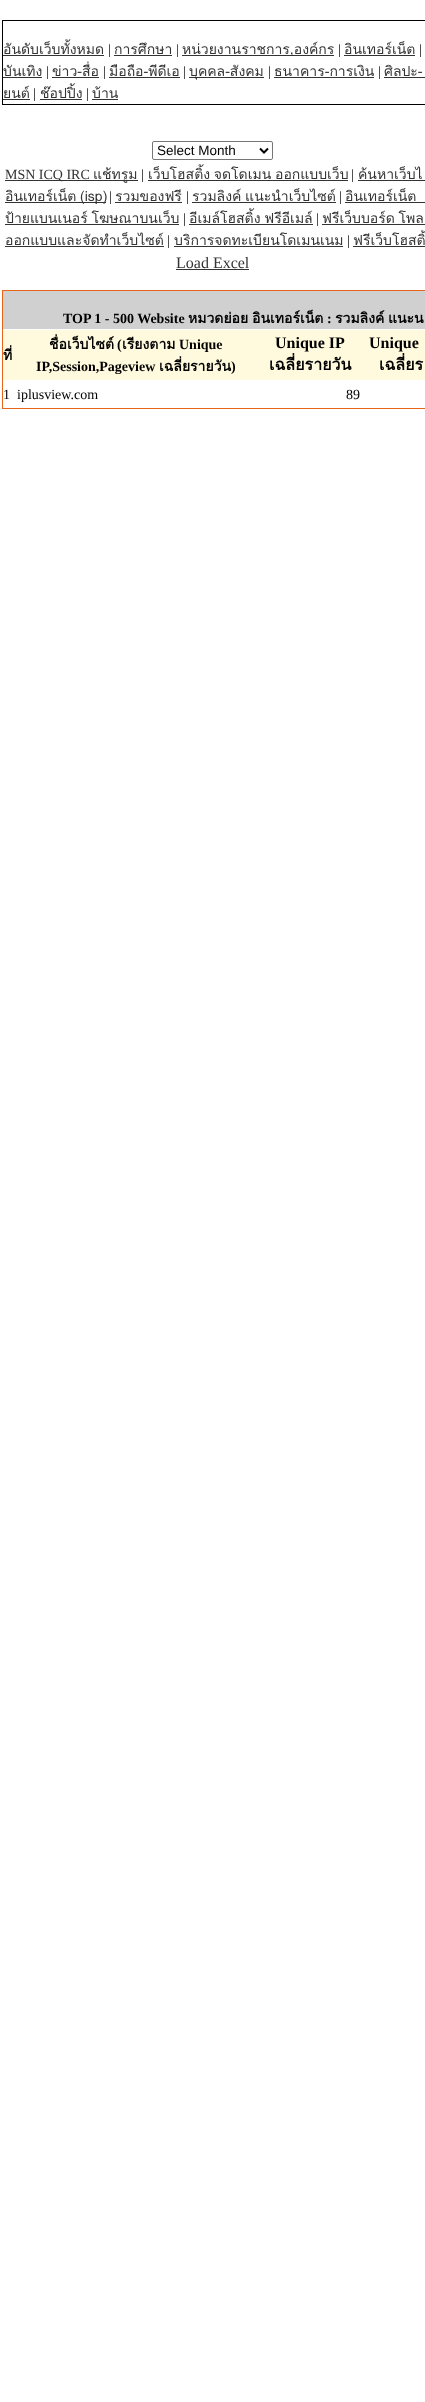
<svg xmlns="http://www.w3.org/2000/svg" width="425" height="2402">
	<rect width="100%" height="100%" fill="#FFFFFF" />
	<rect x="2" y="20" width="423" height="1" fill="#000000" />
	<rect x="2" y="104" width="423" height="1" fill="#000000" />
	<rect x="2" y="20" width="1" height="85" fill="#000000" />
	<text x="3" y="54" font-family="Loma" font-size="14" fill="#333333">อันดับเว็บทั้งหมด</text>
	<rect x="3" y="55" width="101" height="1" fill="#333333" />
	<text x="108" y="54" font-family="Liberation Serif" font-size="14" fill="#000000">|</text>
	<text x="114" y="54" font-family="Loma" font-size="14" fill="#333333">การศึกษา</text>
	<rect x="114" y="55" width="58" height="1" fill="#333333" />
	<text x="176" y="54" font-family="Liberation Serif" font-size="14" fill="#000000">|</text>
	<rect x="182" y="55" width="152" height="1" fill="#333333" />
	<text x="182" y="54" font-family="Loma" font-size="14" fill="#333333">หน่วยงานราชการ,องค์กร</text>
	<text x="338" y="54" font-family="Liberation Serif" font-size="14" fill="#000000">|</text>
	<text x="344" y="54" font-family="Loma" font-size="14" fill="#333333">อินเทอร์เน็ต</text>
	<rect x="344" y="55" width="71" height="1" fill="#333333" />
	<text x="419" y="54" font-family="Liberation Serif" font-size="14" fill="#000000">|</text>
	<text x="3" y="76" font-family="Loma" font-size="14" fill="#333333">บันเทิง</text>
	<rect x="3" y="77" width="39" height="1" fill="#333333" />
	<text x="46" y="76" font-family="Liberation Serif" font-size="14" fill="#000000">|</text>
	<text x="52" y="76" font-family="Loma" font-size="14" fill="#333333">ข่าว-สื่อ</text>
	<rect x="52" y="77" width="47" height="1" fill="#333333" />
	<text x="103" y="76" font-family="Liberation Serif" font-size="14" fill="#000000">|</text>
	<text x="109" y="76" font-family="Loma" font-size="14" fill="#333333">มือถือ-พีดีเอ</text>
	<rect x="109" y="77" width="71" height="1" fill="#333333" />
	<rect x="189" y="77" width="75" height="1" fill="#333333" />
	<g font-family="Loma" font-size="14" fill="#333333">
		<text x="189" y="76">บุคคล-สังคม</text>
		<text x="274" y="76">ธนาคาร-การเงิน</text>
	</g>
	<rect x="274" y="77" width="100" height="1" fill="#333333" />
	<text x="378" y="76" font-family="Liberation Serif" font-size="14" fill="#000000">|</text>
	<text x="384" y="76" font-family="Loma" font-size="14" fill="#333333">ศิลปะ-</text>
	<rect x="384" y="77" width="41" height="1" fill="#333333" />
	<g font-family="Liberation Serif" font-size="14" fill="#000000">
		<text x="183" y="76">|</text>
		<text x="268" y="76">|</text>
	</g>
	<text x="3" y="98" font-family="Loma" font-size="14" fill="#333333">ยนต์</text>
	<rect x="3" y="99" width="27" height="1" fill="#333333" />
	<text x="33" y="98" font-family="Liberation Serif" font-size="14" fill="#000000">|</text>
	<text x="40" y="98" font-family="Loma" font-size="14" fill="#333333">ช๊อปปิ้ง</text>
	<rect x="40" y="99" width="42" height="1" fill="#333333" />
	<text x="86" y="98" font-family="Liberation Serif" font-size="14" fill="#000000">|</text>
	<text x="92" y="98" font-family="Loma" font-size="14" fill="#333333">บ้าน</text>
	<rect x="92" y="99" width="26" height="1" fill="#333333" />
	<rect x="152.5" y="141.5" width="120" height="18" rx="1.5" fill="none" stroke="#767676" />
	<path d="M260 148.5L264 152.5L268 148.5" fill="none" stroke="#000000" stroke-width="2" />
	<text x="157" y="155" font-family="Liberation Sans" font-size="13.5" fill="#000000">Select Month</text>
	<rect x="5" y="180" width="133" height="1" fill="#333333" />
	<text x="5" y="179" font-family="Liberation Serif" font-size="14" fill="#333333">MSN ICQ IRC</text>
	<text x="93" y="179" font-family="Loma" font-size="14" fill="#333333">แช้ทรูม</text>
	<text x="141" y="179" font-family="Liberation Serif" font-size="14" fill="#000000">|</text>
	<text x="148" y="179" word-spacing="-1" font-family="Loma" font-size="14" fill="#333333">เว็บโฮสติ้ง จดโดเมน ออกแบบเว็บ</text>
	<rect x="148" y="180" width="200" height="1" fill="#333333" />
	<text x="351" y="179" font-family="Liberation Serif" font-size="14" fill="#000000">|</text>
	<text x="358" y="179" font-family="Loma" font-size="14" fill="#333333">ค้นหาเว็บไ</text>
	<rect x="358" y="180" width="67" height="1" fill="#333333" />
	<rect x="5" y="202" width="101" height="1" fill="#333333" />
	<text x="5" y="201" word-spacing="-1" font-family="Loma" font-size="14" fill="#333333">อินเทอร์เน็ต (isp)</text>
	<text x="109" y="201" font-family="Liberation Serif" font-size="14" fill="#000000">|</text>
	<text x="115" y="201" font-family="Loma" font-size="14" fill="#333333">รวมของฟรี</text>
	<rect x="115" y="202" width="67" height="1" fill="#333333" />
	<text x="186" y="201" font-family="Liberation Serif" font-size="14" fill="#000000">|</text>
	<text x="192" y="201" word-spacing="-1" font-family="Loma" font-size="14" fill="#333333">รวมลิงค์ แนะนำเว็บไซต์</text>
	<rect x="192" y="202" width="144" height="1" fill="#333333" />
	<text x="339" y="201" font-family="Liberation Serif" font-size="14" fill="#000000">|</text>
	<text x="345" y="201" word-spacing="-1" font-family="Loma" font-size="14" fill="#333333">อินเทอร์เน็ต</text>
	<rect x="345" y="202" width="80" height="1" fill="#333333" />
	<text x="5" y="223" word-spacing="-1" font-family="Loma" font-size="14" fill="#333333">ป้ายแบนเนอร์ โฆษณาบนเว็บ</text>
	<rect x="5" y="224" width="174" height="1" fill="#333333" />
	<text x="183" y="223" font-family="Liberation Serif" font-size="14" fill="#000000">|</text>
	<text x="189" y="223" word-spacing="-1" font-family="Loma" font-size="14" fill="#333333">อีเมล์โฮสติ้ง ฟรีอีเมล์</text>
	<rect x="189" y="224" width="124" height="1" fill="#333333" />
	<text x="322" y="223" word-spacing="-1" font-family="Loma" font-size="14" fill="#333333">ฟรีเว็บบอร์ด โพล</text>
	<rect x="322" y="224" width="103" height="1" fill="#333333" />
	<text x="316" y="223" font-family="Liberation Serif" font-size="14" fill="#000000">|</text>
	<text x="5" y="245" font-family="Loma" font-size="14" fill="#333333">ออกแบบและจัดทำเว็บไซต์</text>
	<rect x="5" y="246" width="159" height="1" fill="#333333" />
	<text x="167" y="245" font-family="Liberation Serif" font-size="14" fill="#000000">|</text>
	<text x="174" y="245" font-family="Loma" font-size="14" fill="#333333">บริการจดทะเบียนโดเมนเนม</text>
	<rect x="174" y="246" width="169" height="1" fill="#333333" />
	<text x="347" y="245" font-family="Liberation Serif" font-size="14" fill="#000000">|</text>
	<text x="353" y="245" font-family="Loma" font-size="14" fill="#333333">ฟรีเว็บโฮสติ้</text>
	<rect x="353" y="246" width="72" height="1" fill="#333333" />
	<text x="176" y="268" font-family="Liberation Serif" font-size="16" fill="#333333">Load Excel</text>
	<rect x="176" y="269" width="73" height="1" fill="#333333" />
	<rect x="2" y="290" width="423" height="119" fill="#E7651A" />
	<rect x="3" y="329" width="422" height="79" fill="#FFFFFF" />
	<rect x="3" y="291" width="422" height="38" fill="#D0D0D0" />
	<text x="63" y="323" font-family="Liberation Serif" font-size="14" font-weight="700" fill="#000000">TOP 1 - 500 Website</text>
	<g font-family="Loma" font-size="14" font-weight="700" fill="#000000">
		<text x="188" y="323">หมวดย่อย</text>
		<text x="252" y="323">อินเทอร์เน็ต</text>
	</g>
	<text x="327" y="323" font-family="Liberation Serif" font-size="14" font-weight="700" fill="#000000">:</text>
	<g font-family="Loma" font-size="14" font-weight="700" fill="#000000">
		<text x="335" y="323">รวมลิงค์</text>
		<text x="388" y="323">แนะน</text>
	</g>
	<rect x="3" y="330" width="422" height="50" fill="#FFF9DD" />
	<g font-family="Loma" font-size="14" font-weight="700" fill="#000000">
		<text x="3" y="360">ที่</text>
		<text x="49" y="349">ชื่อเว็บไซต์</text>
	</g>
	<text x="117" y="349" font-family="Liberation Serif" font-size="14" font-weight="700" fill="#000000">(</text>
	<text x="122" y="349" font-family="Loma" font-size="14" font-weight="700" fill="#000000">เรียงตาม</text>
	<g font-family="Liberation Serif" font-size="14" font-weight="700" fill="#000000">
		<text x="179" y="349">Unique</text>
		<text x="36" y="371">IP,Session,Pageview</text>
	</g>
	<text x="159" y="371" font-family="Loma" font-size="14" font-weight="700" fill="#000000">เฉลี่ยรายวัน</text>
	<text x="231" y="371" font-family="Liberation Serif" font-size="14" font-weight="700" fill="#000000">)</text>
	<text x="275" y="348" font-family="Liberation Serif" font-size="16" font-weight="700" fill="#000000">Unique IP</text>
	<text x="269" y="370" font-family="Loma" font-size="16" font-weight="700" fill="#000000">เฉลี่ยรายวัน</text>
	<text x="369" y="348" font-family="Liberation Serif" font-size="16" font-weight="700" fill="#000000">Unique</text>
	<text x="379" y="370" font-family="Loma" font-size="16" font-weight="700" fill="#000000">เฉลี่ยร</text>
	<g font-family="Liberation Serif" font-size="14" fill="#000000">
		<text x="3" y="399">1</text>
		<text x="17" y="399">iplusview.com</text>
		<text x="346" y="399">89</text>
	</g>
</svg>
